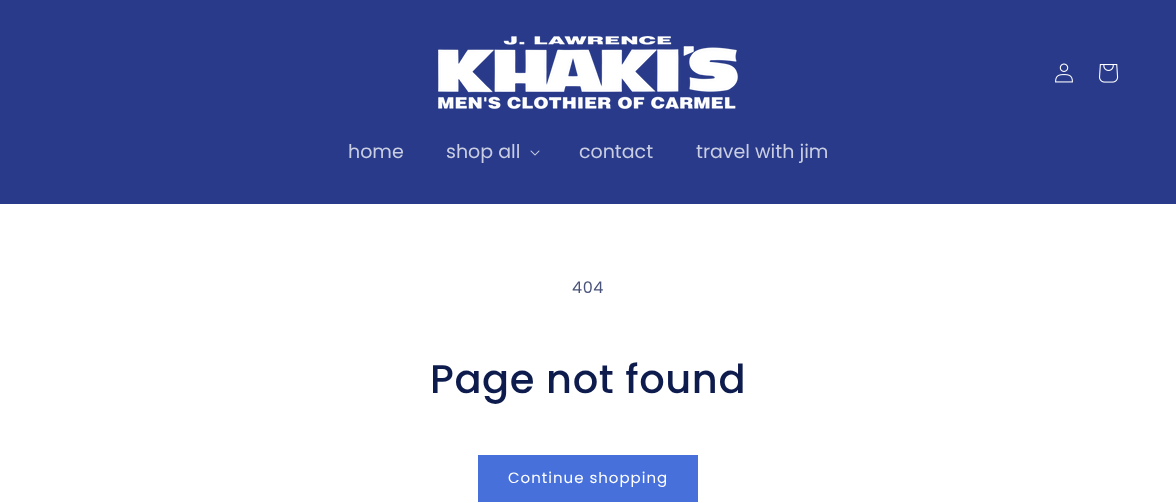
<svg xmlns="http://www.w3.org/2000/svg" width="1176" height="503">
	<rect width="100%" height="100%" fill="#FFFFFF" />
	<rect x="0" y="0" width="1176" height="204" fill="#283A89" />
	<image x="438" y="36" width="300" height="73" href="assets/img1.png" />
	<image x="1055" y="63" width="18" height="20" href="assets/img2.png" />
	<image x="1099" y="64" width="20" height="19" href="assets/img3.png" />
	<g font-family="Poppins" font-size="19" fill="#C9CEE2">
		<text x="348" y="158">home</text>
		<text x="446" y="158">shop all</text>
	</g>
	<image x="530" y="150" width="10" height="6" href="assets/img4.png" />
	<g font-family="Poppins" font-size="19" fill="#C9CEE2">
		<text x="579" y="158">contact</text>
		<text x="696" y="158">travel with jim</text>
	</g>
	<text x="572" y="293" font-family="Poppins" font-size="16" letter-spacing="0.6" fill="#4A547A">404</text>
	<text x="430" y="393" font-family="Poppins" font-size="40" font-weight="500" letter-spacing="0.6" fill="#0E1B4D">Page not found</text>
	<rect x="478" y="455" width="220" height="47" fill="#4770DB" />
	<text x="508" y="483" font-family="Poppins" font-size="15" letter-spacing="1" fill="#FFFFFF">Continue shopping</text>
</svg>
